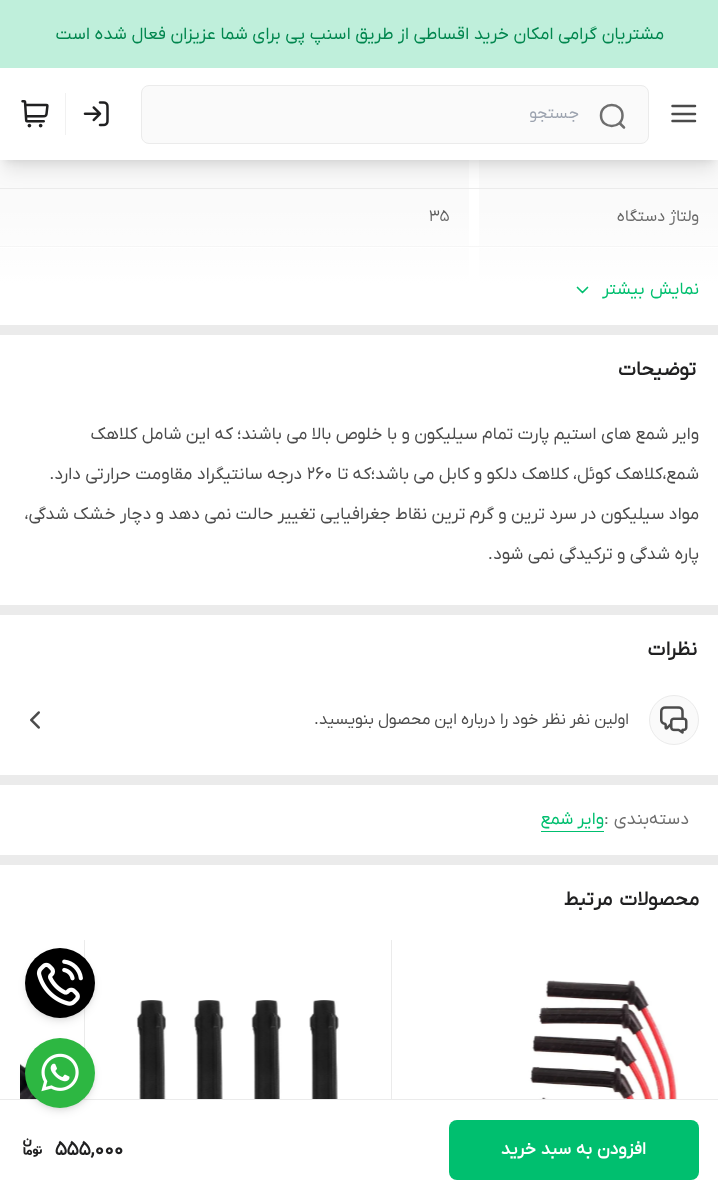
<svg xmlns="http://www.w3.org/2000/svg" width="718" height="1199">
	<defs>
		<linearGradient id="g1" gradientUnits="userSpaceOnUse" x1="359" y1="325" x2="359" y2="205"><stop offset="0.35" stop-color="#FFFFFF" /><stop offset="1" stop-color="#FFFFFF" stop-opacity="0" /></linearGradient>
	</defs>
	<rect width="100%" height="100%" fill="#FFFFFF" />
	<rect x="479" y="160" width="239" height="28" fill="#FAFAFA" />
	<rect x="0" y="160" width="469" height="28" fill="#FAFAFA" />
	<rect x="5" y="10" width="709" height="150" fill="#000000" fill-opacity="0.1" filter="blur(4px)" />
	<rect x="0" y="188" width="718" height="1" fill="#EBEBEB" />
	<rect x="479" y="189" width="239" height="57" fill="#FAFAFA" />
	<rect x="0" y="189" width="469" height="57" fill="#FAFAFA" />
	<rect x="4" y="16" width="711" height="153" fill="#000000" fill-opacity="0.1" filter="blur(9.5px)" />
	<rect x="0" y="68" width="718" height="92" fill="#FFFFFF" />
	<rect x="0" y="0" width="718" height="68" fill="#BFEFDB" />
	<text x="664" y="39" word-spacing="0.25" font-family="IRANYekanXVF" font-size="17.5" direction="rtl" fill="#00864E">مشتریان گرامی امکان خرید اقساطی از طریق اسنپ پی برای شما عزیزان فعال شده است</text>
	<path d="M672.5 114H695M672.5 106H695M672.5 121H695" fill="none" stroke="#4B4B4B" stroke-width="2.5" stroke-linecap="round" stroke-linejoin="round" />
	<rect x="141.5" y="85.5" width="507" height="58" rx="7.5" fill="#FAFAFA" stroke="#EBEBEB" />
	<path d="M624 127.5L619.5 123M622.5 115.5C622.5 129.5 601 129.5 601 115.5C601 101.5 622.5 101.5 622.5 115.5" fill="none" stroke="#6E6E6E" stroke-width="2.5" stroke-linecap="round" stroke-linejoin="round" />
	<text x="579" y="118" font-family="IRANYekanXVF" font-size="16.25" direction="rtl" fill="#9CA3AF">جستجو</text>
	<image x="83" y="101" width="26" height="26" href="assets/img1.png" />
	<rect x="65" y="93" width="1" height="42" fill="#F1F1F1" />
	<image x="21" y="100" width="28" height="28" href="assets/img2.png" />
	<rect x="0" y="325" width="718" height="10" fill="#EBEBEB" />
	<rect x="0" y="246" width="718" height="1" fill="#EBEBEB" />
	<text x="699" y="221" font-family="IRANYekanXVF" font-size="16.25" direction="rtl" fill="#4B4B4B">ولتاژ دستگاه</text>
	<text x="429" y="221" font-family="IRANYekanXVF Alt" font-size="16.25" fill="#4B4B4B">35</text>
	<rect x="479" y="248" width="239" height="35" fill="#FAFAFA" />
	<rect x="0" y="248" width="469" height="35" fill="#FAFAFA" />
	<rect x="0" y="209" width="718" height="74" fill="url(#g1)" />
	<text x="699" y="294" word-spacing="1" font-family="IRANYekanXVF" font-size="17.5" direction="rtl" fill="#00BF6F">نمایش بیشتر</text>
	<path d="M577.5 287.5L582.5 292.5L587.5 287.5" fill="none" stroke="#00BF6F" stroke-width="1.7" stroke-linecap="round" stroke-linejoin="round" />
	<rect x="0" y="605" width="718" height="10" fill="#EBEBEB" />
	<text x="696" y="375" font-family="IRANYekanXVF" font-size="20" font-weight="700" direction="rtl" fill="#202021">توضیحات</text>
	<g font-family="IRANYekanXVF" font-size="17.5" direction="rtl" fill="#4B4B4B">
		<text x="699" y="439">وایر شمع های استیم پارت تمام سیلیکون و با خلوص بالا می باشند؛ که این شامل کلاهک</text>
		<text x="699" y="479">شمع،کلاهک کوئل، کلاهک دلکو و کابل می باشد؛که تا</text>
	</g>
	<text x="307" y="479" font-family="IRANYekanXVF" font-size="17.5" fill="#4B4B4B">۲۶۰</text>
	<g font-family="IRANYekanXVF" font-size="17.5" direction="rtl" fill="#4B4B4B">
		<text x="302" y="479">درجه سانتیگراد مقاومت حرارتی دارد.</text>
		<text x="699" y="519">مواد سیلیکون در سرد ترین و گرم ترین نقاط جغرافیایی تغییر حالت نمی دهد و دچار خشک شدگی،</text>
		<text x="699" y="559">پاره شدگی و ترکیدگی نمی شود.</text>
	</g>
	<text x="697" y="655" font-family="IRANYekanXVF" font-size="20" font-weight="700" direction="rtl" fill="#202021">نظرات</text>
	<circle cx="674" cy="720" r="24.5" fill="#FAFAFA" stroke="#EBEBEB" />
	<image x="660" y="706" width="28" height="28" href="assets/img3.png" />
	<text x="629" y="724" font-family="IRANYekanXVF" font-size="16.25" direction="rtl" fill="#4B4B4B">اولین نفر نظر خود را درباره این محصول بنویسید.</text>
	<image x="30" y="711" width="10" height="18" href="assets/img4.png" />
	<rect x="0" y="775" width="718" height="10" fill="#EBEBEB" />
	<text x="689" y="824" font-family="IRANYekanXVF" font-size="17.5" direction="rtl" fill="#6E6E6E">دسته‌بندی</text>
	<text x="604" y="824" font-family="IRANYekanXVF" font-size="17.5" fill="#6E6E6E">:</text>
	<text x="604" y="824" font-family="IRANYekanXVF" font-size="17.5" direction="rtl" fill="#00BF6F">وایر شمع</text>
	<rect x="541" y="831" width="63" height="1" fill="#00BF6F" />
	<rect x="0" y="855" width="718" height="10" fill="#EBEBEB" />
	<text x="699" y="905" word-spacing="2" font-family="IRANYekanXVF" font-size="20" font-weight="700" direction="rtl" fill="#202021">محصولات مرتبط</text>
	<rect x="391" y="940" width="1" height="159" fill="#EBEBEB" />
	<image x="413" y="980" width="265" height="119" href="assets/img5.png" />
	<rect x="84" y="940" width="1" height="159" fill="#EBEBEB" />
	<image x="126" y="1000" width="224" height="99" href="assets/img6.png" />
	<image x="20" y="1063" width="17" height="36" href="assets/img7.png" />
	<rect x="0" y="1099" width="718" height="1" fill="#EBEBEB" />
	<rect x="449" y="1120" width="250" height="60" rx="8" fill="#00BF6F" />
	<text x="646" y="1154" word-spacing="0.5" font-family="IRANYekanXVF" font-size="17.5" font-weight="700" direction="rtl" fill="#FFFFFF">افزودن به سبد خرید</text>
	<text x="55" y="1155" font-family="IRANYekanXVF Alt" font-size="20" font-weight="700" fill="#202021">555,000</text>
	<image x="23" y="1138" width="19" height="19" href="assets/img8.png" />
	<rect x="28" y="953" width="65" height="65" rx="32.5" fill="#000000" fill-opacity="0.1" filter="blur(2.5px)" />
	<rect x="26" y="954" width="68" height="67" rx="33.5" fill="#000000" fill-opacity="0.1" filter="blur(4px)" />
	<circle cx="60" cy="983" r="35" fill="#000000" />
	<image x="36" y="959" width="47" height="47" href="assets/img9.png" />
	<rect x="28" y="1043" width="65" height="65" rx="32.5" fill="#000000" fill-opacity="0.1" filter="blur(2.5px)" />
	<rect x="26" y="1044" width="68" height="67" rx="33.5" fill="#000000" fill-opacity="0.1" filter="blur(4px)" />
	<circle cx="60" cy="1073" r="35" fill="#2DB742" />
	<image x="41" y="1053" width="38" height="39" href="assets/img10.png" />
</svg>
